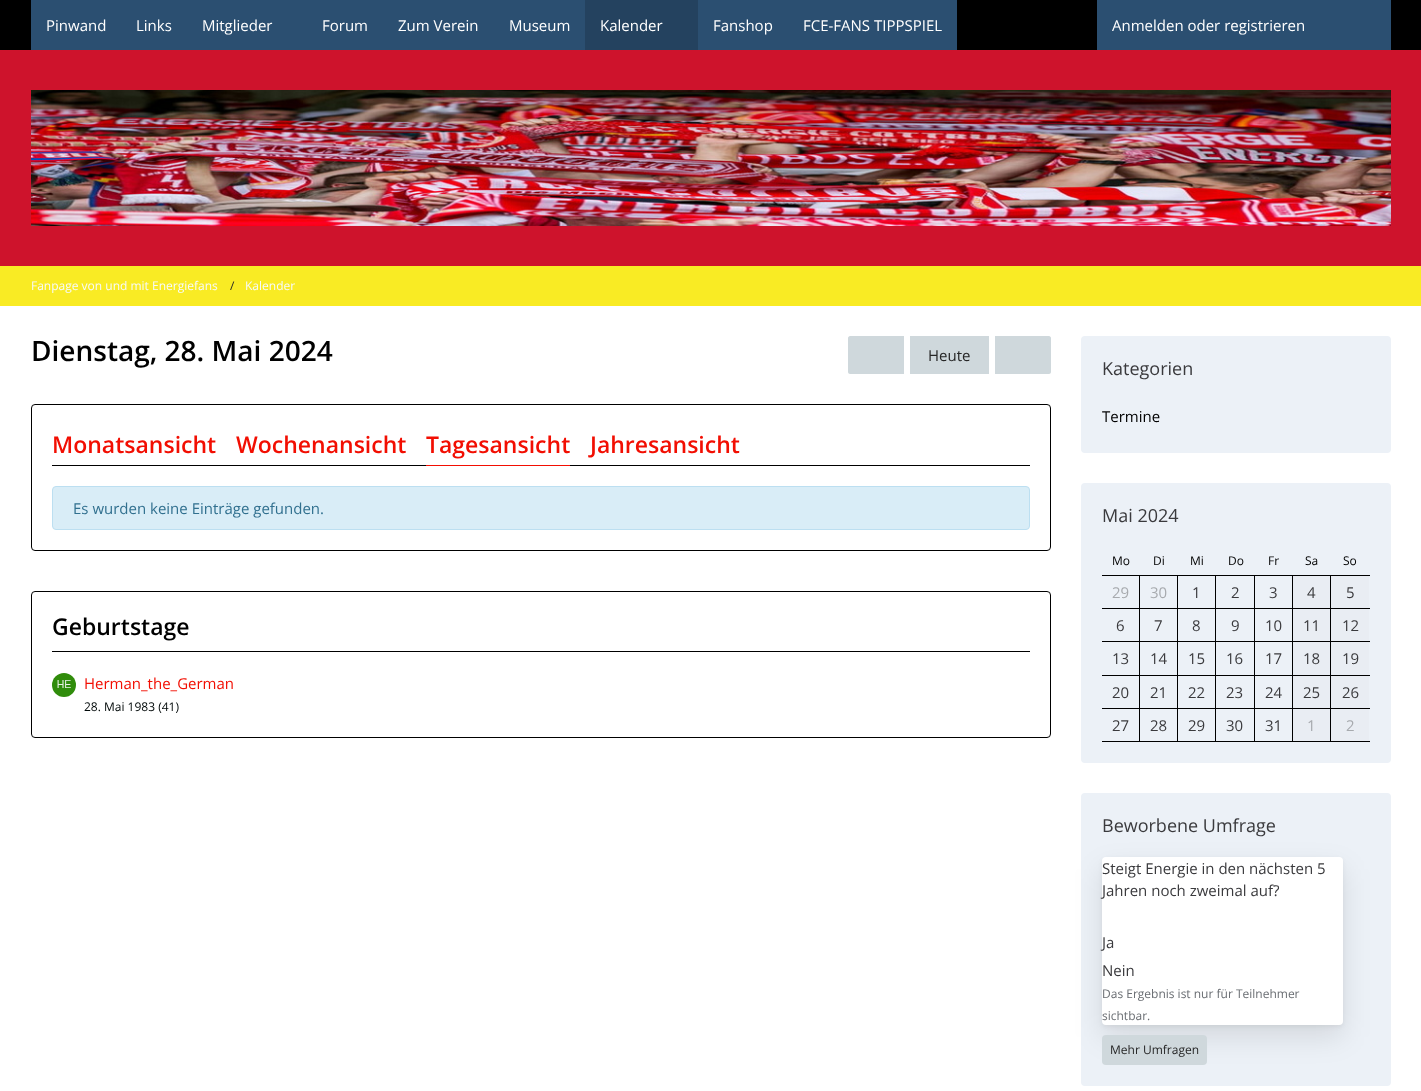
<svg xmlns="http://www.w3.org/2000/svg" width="1421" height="1091">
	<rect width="100%" height="100%" fill="#FFFFFF" />
	<rect x="0" y="50" width="1421" height="216" fill="#CE132C" />
	<rect x="0" y="0" width="1421" height="50" fill="#000000" />
	<rect x="31" y="0" width="554" height="50" fill="#2B4F71" />
	<g font-family="Open Sans" font-size="15" fill="#FFFFFF">
		<text x="46" y="31">Pinwand</text>
		<text x="136" y="31">Links</text>
		<text x="202" y="31">Mitglieder</text>
		<text x="322" y="31">Forum</text>
		<text x="398" y="31">Zum Verein</text>
		<text x="509" y="31">Museum</text>
	</g>
	<rect x="585" y="0" width="113" height="50" fill="#24425F" />
	<text x="600" y="31" font-family="Open Sans" font-size="15" fill="#FFFFFF">Kalender</text>
	<rect x="698" y="0" width="259" height="50" fill="#2B4F71" />
	<g font-family="Open Sans" font-size="15" fill="#FFFFFF">
		<text x="713" y="31">Fanshop</text>
		<text x="803" y="31">FCE-FANS TIPPSPIEL</text>
	</g>
	<rect x="1097" y="0" width="294" height="50" fill="#2B4F71" />
	<text x="1112" y="31" font-family="Open Sans" font-size="15" fill="#FFFFFF">Anmelden oder registrieren</text>
	<image x="31" y="90" width="1360" height="136" href="assets/img1.png" />
	<rect x="0" y="266" width="1421" height="40" fill="#F9EB24" />
	<text x="31" y="290" font-family="Open Sans" font-size="12" fill="#F7FAFC">Fanpage von und mit Energiefans</text>
	<text x="230" y="290" font-family="Open Sans" font-size="12" fill="#262626">/</text>
	<text x="245" y="290" font-family="Open Sans" font-size="12" fill="#F7FAFC">Kalender</text>
	<text x="31" y="361" font-family="Open Sans" font-size="28" font-weight="600" fill="#000000">Dienstag, 28. Mai 2024</text>
	<path d="M850 336H904V374H850C849 374 848 373 848 372V338C848 337 849 336 850 336Z" fill="#CFD8DC" />
	<rect x="910" y="336" width="79" height="38" fill="#CFD8DC" />
	<text x="928" y="361" font-family="Open Sans" font-size="15" fill="#262626">Heute</text>
	<path d="M995 336H1049C1050 336 1051 337 1051 338V372C1051 373 1050 374 1049 374H995Z" fill="#CFD8DC" />
	<rect x="31.5" y="404.5" width="1019" height="146" rx="3.5" fill="none" stroke="#000000" />
	<rect x="52" y="465" width="978" height="1" fill="#000000" />
	<g font-family="Open Sans" font-size="23" font-weight="600" fill="#F20E02">
		<text x="52" y="453">Monatsansicht</text>
		<text x="236" y="453">Wochenansicht</text>
		<text x="426" y="453">Tagesansicht</text>
	</g>
	<rect x="426" y="465" width="144" height="1" fill="#F20E02" />
	<text x="590" y="453" font-family="Open Sans" font-size="23" font-weight="600" fill="#F20E02">Jahresansicht</text>
	<rect x="52.5" y="486.5" width="977" height="43" rx="3.5" fill="#D9EDF7" stroke="#BCDFF1" />
	<text x="73" y="514" font-family="Open Sans" font-size="15" fill="#31708F">Es wurden keine Einträge gefunden.</text>
	<rect x="31.5" y="591.5" width="1019" height="146" rx="3.5" fill="none" stroke="#000000" />
	<rect x="52" y="651" width="978" height="1" fill="#000000" />
	<text x="52" y="635" font-family="Open Sans" font-size="23" font-weight="600" fill="#000000">Geburtstage</text>
	<image x="52" y="673" width="24" height="24" href="assets/img2.png" />
	<text x="84" y="689" font-family="Open Sans" font-size="15" fill="#F20E02">Herman_the_German</text>
	<text x="84" y="711" font-family="Open Sans" font-size="12" fill="#000808">28. Mai 1983 (41)</text>
	<rect x="1081" y="336" width="310" height="117" rx="4" fill="#ECF1F7" />
	<text x="1102" y="375" font-family="Open Sans" font-size="18" fill="#3A3A3D">Kategorien</text>
	<text x="1102" y="422" font-family="Open Sans" font-size="15" fill="#000000">Termine</text>
	<rect x="1081" y="483" width="310" height="280" rx="4" fill="#ECF1F7" />
	<text x="1102" y="522" font-family="Open Sans" font-size="18" fill="#3A3A3D">Mai 2024</text>
	<rect x="1102" y="575" width="268" height="1" fill="#000000" />
	<g font-family="Open Sans" font-size="12" fill="#000000">
		<text x="1112" y="565">Mo</text>
		<text x="1153" y="565">Di</text>
		<text x="1190" y="565">Mi</text>
		<text x="1228" y="565">Do</text>
		<text x="1268" y="565">Fr</text>
		<text x="1305" y="565">Sa</text>
		<text x="1343" y="565">So</text>
	</g>
	<rect x="1102" y="608" width="268" height="1" fill="#000000" />
	<rect x="1139" y="576" width="1" height="32" fill="#000000" />
	<text x="1112" y="598" font-family="Open Sans" font-size="15" fill="#A7AAAE">29</text>
	<rect x="1177" y="576" width="1" height="32" fill="#000000" />
	<text x="1150" y="598" font-family="Open Sans" font-size="15" fill="#A7AAAE">30</text>
	<rect x="1215" y="576" width="1" height="32" fill="#000000" />
	<text x="1192" y="598" font-family="Open Sans" font-size="15" fill="#3A3A3D">1</text>
	<rect x="1254" y="576" width="1" height="32" fill="#000000" />
	<text x="1231" y="598" font-family="Open Sans" font-size="15" fill="#3A3A3D">2</text>
	<rect x="1292" y="576" width="1" height="32" fill="#000000" />
	<text x="1269" y="598" font-family="Open Sans" font-size="15" fill="#3A3A3D">3</text>
	<rect x="1293" y="576" width="37" height="32" fill="#E9EDF3" />
	<rect x="1330" y="576" width="1" height="32" fill="#000000" />
	<text x="1307" y="598" font-family="Open Sans" font-size="15" fill="#3A3A3D">4</text>
	<rect x="1331" y="576" width="38" height="32" fill="#E9EDF3" />
	<text x="1346" y="598" font-family="Open Sans" font-size="15" fill="#3A3A3D">5</text>
	<rect x="1102" y="641" width="268" height="1" fill="#000000" />
	<rect x="1139" y="609" width="1" height="32" fill="#000000" />
	<text x="1116" y="631" font-family="Open Sans" font-size="15" fill="#3A3A3D">6</text>
	<rect x="1177" y="609" width="1" height="32" fill="#000000" />
	<text x="1154" y="631" font-family="Open Sans" font-size="15" fill="#3A3A3D">7</text>
	<rect x="1215" y="609" width="1" height="32" fill="#000000" />
	<text x="1192" y="631" font-family="Open Sans" font-size="15" fill="#3A3A3D">8</text>
	<rect x="1254" y="609" width="1" height="32" fill="#000000" />
	<text x="1231" y="631" font-family="Open Sans" font-size="15" fill="#3A3A3D">9</text>
	<rect x="1292" y="609" width="1" height="32" fill="#000000" />
	<text x="1265" y="631" font-family="Open Sans" font-size="15" fill="#3A3A3D">10</text>
	<rect x="1293" y="609" width="37" height="32" fill="#E9EDF3" />
	<rect x="1330" y="609" width="1" height="32" fill="#000000" />
	<text x="1303" y="631" font-family="Open Sans" font-size="15" fill="#3A3A3D">11</text>
	<rect x="1331" y="609" width="38" height="32" fill="#E9EDF3" />
	<text x="1342" y="631" font-family="Open Sans" font-size="15" fill="#3A3A3D">12</text>
	<rect x="1102" y="675" width="268" height="1" fill="#000000" />
	<rect x="1139" y="642" width="1" height="33" fill="#000000" />
	<text x="1112" y="664" font-family="Open Sans" font-size="15" fill="#3A3A3D">13</text>
	<rect x="1177" y="642" width="1" height="33" fill="#000000" />
	<text x="1150" y="664" font-family="Open Sans" font-size="15" fill="#3A3A3D">14</text>
	<rect x="1215" y="642" width="1" height="33" fill="#000000" />
	<text x="1188" y="664" font-family="Open Sans" font-size="15" fill="#3A3A3D">15</text>
	<rect x="1254" y="642" width="1" height="33" fill="#000000" />
	<text x="1226" y="664" font-family="Open Sans" font-size="15" fill="#3A3A3D">16</text>
	<rect x="1292" y="642" width="1" height="33" fill="#000000" />
	<text x="1265" y="664" font-family="Open Sans" font-size="15" fill="#3A3A3D">17</text>
	<rect x="1293" y="642" width="37" height="33" fill="#E9EDF3" />
	<rect x="1330" y="642" width="1" height="33" fill="#000000" />
	<text x="1303" y="664" font-family="Open Sans" font-size="15" fill="#3A3A3D">18</text>
	<rect x="1331" y="642" width="38" height="33" fill="#E9EDF3" />
	<text x="1342" y="664" font-family="Open Sans" font-size="15" fill="#3A3A3D">19</text>
	<rect x="1102" y="708" width="268" height="1" fill="#000000" />
	<rect x="1139" y="676" width="1" height="32" fill="#000000" />
	<text x="1112" y="698" font-family="Open Sans" font-size="15" fill="#3A3A3D">20</text>
	<rect x="1177" y="676" width="1" height="32" fill="#000000" />
	<text x="1150" y="698" font-family="Open Sans" font-size="15" fill="#3A3A3D">21</text>
	<rect x="1215" y="676" width="1" height="32" fill="#000000" />
	<text x="1188" y="698" font-family="Open Sans" font-size="15" fill="#3A3A3D">22</text>
	<rect x="1254" y="676" width="1" height="32" fill="#000000" />
	<text x="1226" y="698" font-family="Open Sans" font-size="15" fill="#3A3A3D">23</text>
	<rect x="1292" y="676" width="1" height="32" fill="#000000" />
	<text x="1265" y="698" font-family="Open Sans" font-size="15" fill="#3A3A3D">24</text>
	<rect x="1293" y="676" width="37" height="32" fill="#E9EDF3" />
	<rect x="1330" y="676" width="1" height="32" fill="#000000" />
	<text x="1303" y="698" font-family="Open Sans" font-size="15" fill="#3A3A3D">25</text>
	<rect x="1331" y="676" width="38" height="32" fill="#E9EDF3" />
	<text x="1342" y="698" font-family="Open Sans" font-size="15" fill="#3A3A3D">26</text>
	<rect x="1102" y="741" width="268" height="1" fill="#000000" />
	<rect x="1139" y="709" width="1" height="32" fill="#000000" />
	<text x="1112" y="731" font-family="Open Sans" font-size="15" fill="#3A3A3D">27</text>
	<rect x="1177" y="709" width="1" height="32" fill="#000000" />
	<text x="1150" y="731" font-family="Open Sans" font-size="15" fill="#3A3A3D">28</text>
	<rect x="1215" y="709" width="1" height="32" fill="#000000" />
	<text x="1188" y="731" font-family="Open Sans" font-size="15" fill="#3A3A3D">29</text>
	<rect x="1254" y="709" width="1" height="32" fill="#000000" />
	<text x="1226" y="731" font-family="Open Sans" font-size="15" fill="#3A3A3D">30</text>
	<rect x="1292" y="709" width="1" height="32" fill="#000000" />
	<text x="1265" y="731" font-family="Open Sans" font-size="15" fill="#3A3A3D">31</text>
	<rect x="1293" y="709" width="37" height="32" fill="#E9EDF3" />
	<rect x="1330" y="709" width="1" height="32" fill="#000000" />
	<text x="1307" y="731" font-family="Open Sans" font-size="15" fill="#A7AAAE">1</text>
	<rect x="1331" y="709" width="38" height="32" fill="#E9EDF3" />
	<text x="1346" y="731" font-family="Open Sans" font-size="15" fill="#A7AAAE">2</text>
	<rect x="1081" y="793" width="310" height="293" rx="4" fill="#ECF1F7" />
	<rect x="1102" y="869" width="241" height="168" rx="4" fill="#000000" fill-opacity="0.1" filter="blur(14px)" />
	<text x="1102" y="832" font-family="Open Sans" font-size="18" fill="#3A3A3D">Beworbene Umfrage</text>
	<rect x="1102" y="859" width="241" height="168" rx="4" fill="#000000" fill-opacity="0.05" filter="blur(2px)" />
	<rect x="1102" y="857" width="241" height="168" rx="4" fill="#FFFFFF" />
	<g font-family="Open Sans" font-size="15" fill="#3A3A3D">
		<text x="1102" y="874">Steigt Energie in den nächsten 5</text>
		<text x="1102" y="896">Jahren noch zweimal auf?</text>
		<text x="1102" y="948">Ja</text>
		<text x="1102" y="976">Nein</text>
	</g>
	<g font-family="Open Sans" font-size="12" fill="#696D72">
		<text x="1102" y="998">Das Ergebnis ist nur für Teilnehmer</text>
		<text x="1102" y="1020">sichtbar.</text>
	</g>
	<rect x="1102" y="1035" width="105" height="30" rx="4" fill="#CFD8DC" />
	<text x="1110" y="1054" font-family="Open Sans" font-size="12" fill="#262626">Mehr Umfragen</text>
</svg>
